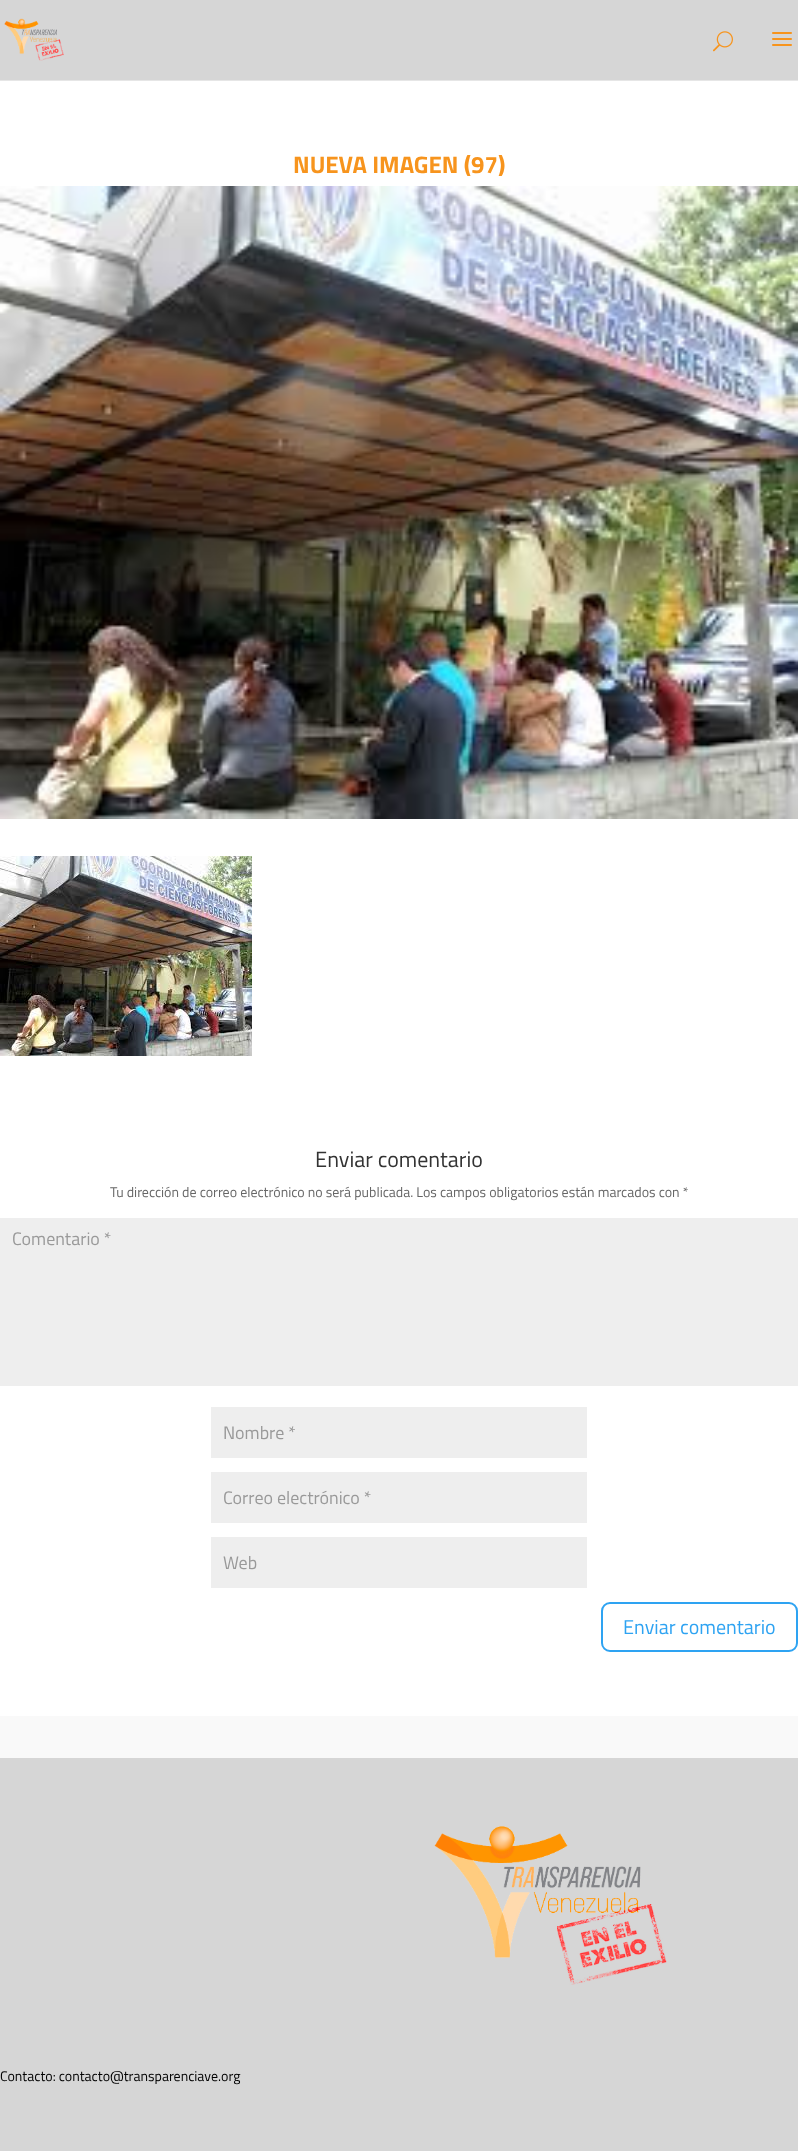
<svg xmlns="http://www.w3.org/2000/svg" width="798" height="2151">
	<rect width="100%" height="100%" fill="#F9F9F9" />
	<rect x="0" y="80" width="798" height="1" fill="#E6E6E6" />
	<rect x="0" y="0" width="798" height="80" fill="#D6D6D6" />
	<image x="4" y="18" width="60" height="43" href="assets/img1.png" />
	<image x="713" y="31" width="20" height="21" href="assets/img2.png" />
	<image x="772" y="32" width="20" height="14" href="assets/img3.png" />
	<rect x="0" y="81" width="798" height="1635" fill="#FFFFFF" />
	<text x="293" y="173" font-family="Titillium Web" font-size="24" font-weight="700" fill="#F7941D">NUEVA IMAGEN (97)</text>
	<image x="0" y="186" width="798" height="633" href="assets/img4.png" />
	<image x="0" y="856" width="252" height="200" href="assets/img5.png" />
	<text x="315" y="1167" font-family="Titillium Web" font-size="22" fill="#333333">Enviar comentario</text>
	<text x="110" y="1197" font-family="Titillium Web" font-size="14" fill="#666666">Tu dirección de correo electrónico no será publicada. Los campos obligatorios están marcados con *</text>
	<rect x="0" y="1218" width="798" height="168" fill="#EEEEEE" />
	<text x="12" y="1245" font-family="Titillium Web" font-size="18" fill="#999999">Comentario *</text>
	<rect x="211" y="1407" width="376" height="51" fill="#EEEEEE" />
	<text x="223" y="1439" font-family="Titillium Web" font-size="18" fill="#999999">Nombre *</text>
	<rect x="211" y="1472" width="376" height="51" fill="#EEEEEE" />
	<text x="223" y="1504" font-family="Titillium Web" font-size="18" fill="#999999">Correo electrónico *</text>
	<rect x="211" y="1537" width="376" height="51" fill="#EEEEEE" />
	<text x="223" y="1569" font-family="Titillium Web" font-size="18" fill="#999999">Web</text>
	<rect x="602" y="1603" width="195" height="48" rx="8" fill="none" stroke="#2EA3F2" stroke-width="2" />
	<text x="623" y="1634" font-family="Titillium Web" font-size="20" fill="#2EA3F2">Enviar comentario</text>
	<rect x="0" y="1758" width="798" height="393" fill="#D6D6D6" />
	<image x="434" y="1826" width="233" height="159" href="assets/img6.png" />
	<text x="0" y="2081" font-family="Titillium Web" font-size="14" fill="#000000">Contacto: contacto@transparenciave.org</text>
</svg>
